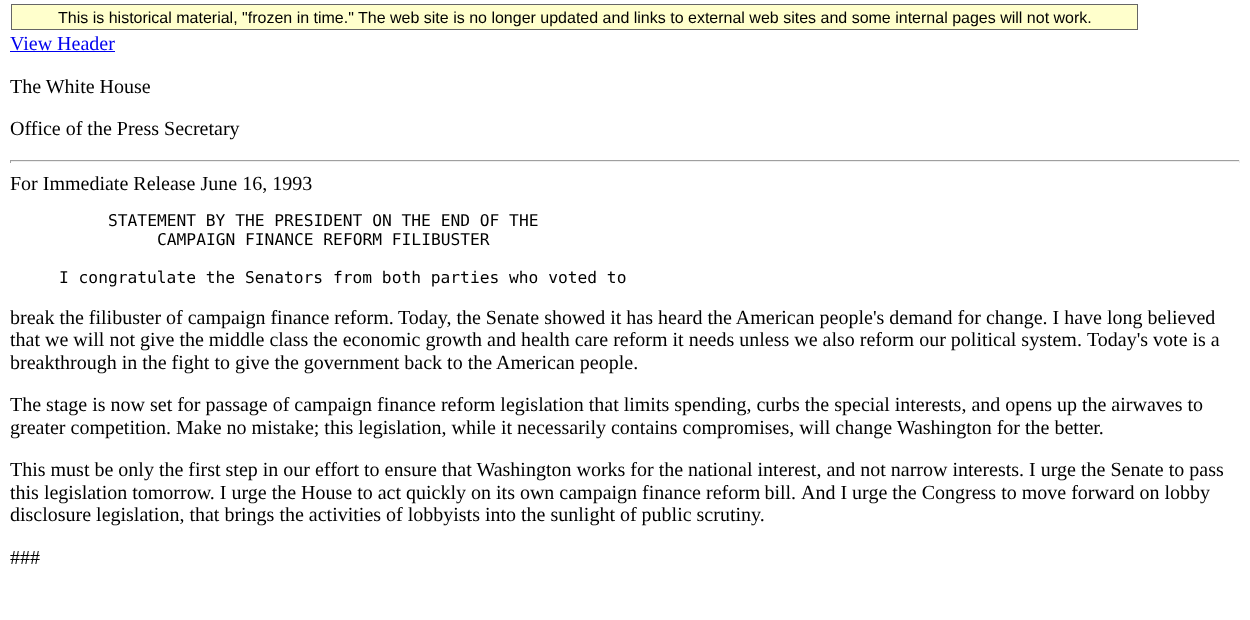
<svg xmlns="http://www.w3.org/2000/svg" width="1250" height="620">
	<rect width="100%" height="100%" fill="#FFFFFF" />
	<rect x="11.5" y="4.5" width="1126" height="25" fill="#FFFFCC" stroke="#666666" />
	<g font-family="Liberation Sans" font-size="16" fill="#000000">
		<text x="58" y="23">This is historical material, "frozen in time."</text>
		<text x="358" y="23">The web site is no longer updated and links to external web sites and some internal pages will not work.</text>
	</g>
	<text x="10" y="50" font-family="Liberation Serif" font-size="20" fill="#0000EE">View Header</text>
	<rect x="10" y="51" width="105" height="1" fill="#0000EE" />
	<g font-family="Liberation Serif" font-size="20" fill="#000000">
		<text x="10" y="93">The White House</text>
		<text x="10" y="135">Office of the Press Secretary</text>
	</g>
	<rect x="10" y="160" width="1230" height="1" fill="#9F9F9F" />
	<rect x="1239" y="160" width="1" height="3" fill="#EEEEEE" />
	<rect x="10" y="161" width="1230" height="1" fill="#EEEEEE" />
	<rect x="10" y="160" width="1" height="3" fill="#9F9F9F" />
	<text x="10" y="190" font-family="Liberation Serif" font-size="20" fill="#000000">For Immediate Release June 16, 1993</text>
	<g font-family="DejaVu Sans Mono" font-size="16.25" fill="#000000">
		<text x="108" y="226">STATEMENT BY THE PRESIDENT ON THE END OF THE</text>
		<text x="157" y="245">CAMPAIGN FINANCE REFORM FILIBUSTER</text>
		<text x="59" y="283">I congratulate the Senators from both parties who voted to</text>
	</g>
	<g font-family="Liberation Serif" font-size="20" fill="#000000">
		<text x="10" y="324">break the filibuster of campaign finance reform.</text>
		<text x="398" y="324">Today, the Senate showed it has heard the American people's demand for change. I have long believed</text>
		<text x="10" y="346">that we will not give the middle class the economic growth and health care reform it needs unless we also reform our political system.</text>
		<text x="1087" y="346">Today's vote is a</text>
		<text x="10" y="369">breakthrough in the fight to give the government back to the American people.</text>
		<text x="10" y="411">The stage is now set for passage of campaign finance reform legislation that limits spending, curbs the special interests, and opens up the airwaves to</text>
		<text x="10" y="434">greater competition. Make no mistake; this legislation, while it necessarily contains compromises, will change Washington for the better.</text>
		<text x="10" y="476">This must be only the first step in our effort to ensure that Washington works for the national interest, and not narrow interests. I urge the Senate to pass</text>
		<text x="10" y="499">this legislation tomorrow. I urge the House to act quickly on its own campaign finance</text>
		<text x="706" y="499" word-spacing="-1">reform bill.</text>
		<text x="801" y="499">And I urge the Congress to move forward on lobby</text>
		<text x="10" y="521">disclosure legislation, that brings the activities of lobbyists into the sunlight of public scrutiny.</text>
		<text x="10" y="564">###</text>
	</g>
</svg>
